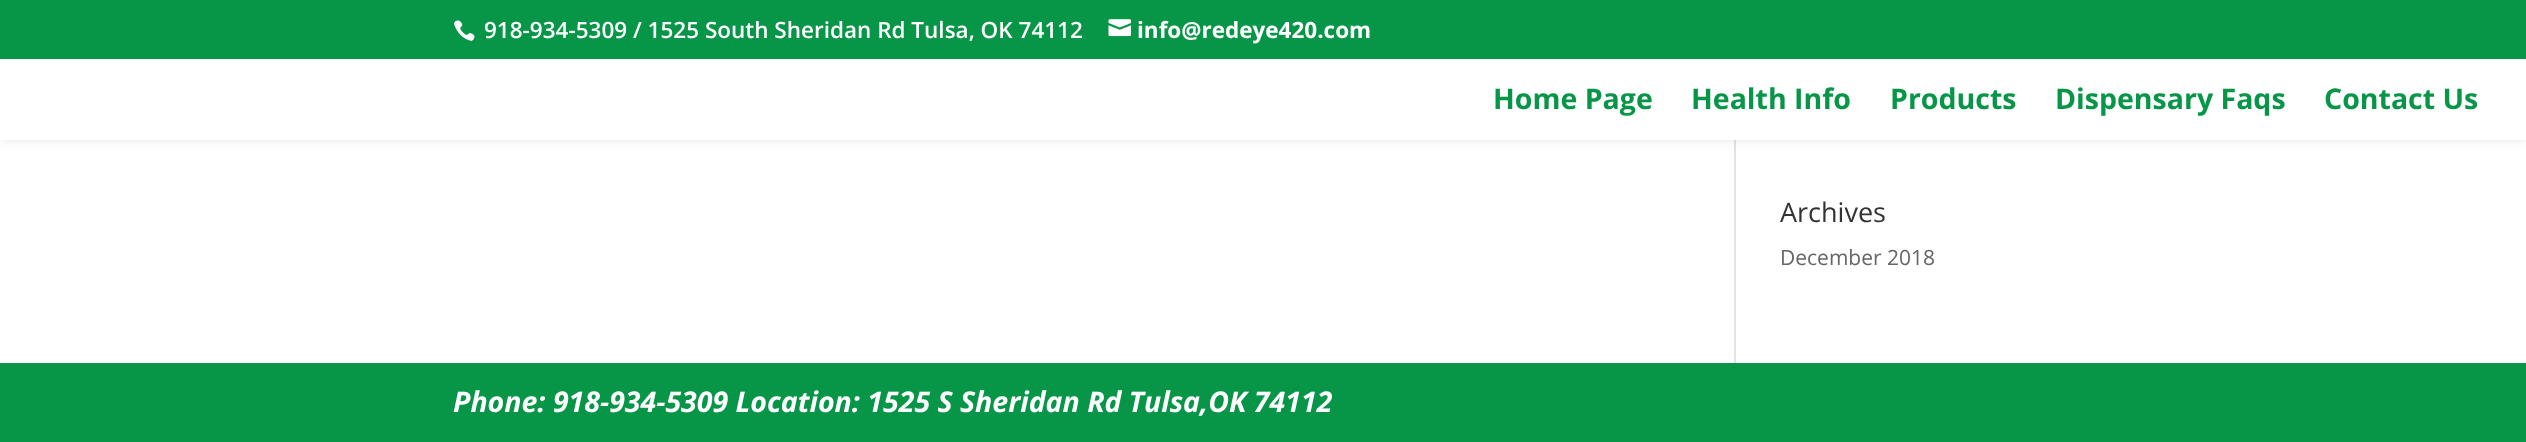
<svg xmlns="http://www.w3.org/2000/svg" width="2526" height="442">
	<rect width="100%" height="100%" fill="#FFFFFF" />
	<rect x="1734" y="140" width="2" height="223" fill="#E2E2E2" />
	<rect x="0" y="59" width="2526" height="81" fill="#000000" fill-opacity="0.1" filter="blur(5px)" />
	<rect x="0" y="0" width="2526" height="59" fill="#079647" />
	<image x="453" y="20" width="22" height="21" href="assets/img1.png" />
	<text x="484" y="38" font-family="Open Sans" font-size="22.5" font-weight="600" fill="#FFFFFF">918-934-5309 / 1525 South Sheridan Rd Tulsa, OK 74112</text>
	<image x="1108" y="19" width="23" height="18" href="assets/img2.png" />
	<text x="1137" y="38" font-family="Open Sans" font-size="22.5" font-weight="700" fill="#FFFFFF">info@redeye420.com</text>
	<rect x="0" y="59" width="2526" height="81" fill="#FFFFFF" />
	<g font-family="Open Sans" font-size="28.5" font-weight="700" fill="#079647">
		<text x="1493" y="109">Home Page</text>
		<text x="1691" y="109">Health Info</text>
		<text x="1890" y="109">Products</text>
		<text x="2055" y="109">Dispensary Faqs</text>
		<text x="2324" y="109">Contact Us</text>
	</g>
	<text x="1780" y="222" font-family="Open Sans" font-size="27" fill="#333333">Archives</text>
	<text x="1780" y="265" font-family="Open Sans" font-size="21" fill="#666666">December 2018</text>
	<rect x="0" y="363" width="2526" height="79" fill="#079647" />
	<text x="453" y="412" font-family="Open Sans" font-size="28.5" font-weight="700" font-style="italic" fill="#FFFFFF">Phone: 918-934-5309 Location: 1525 S Sheridan Rd Tulsa,OK 74112</text>
</svg>
